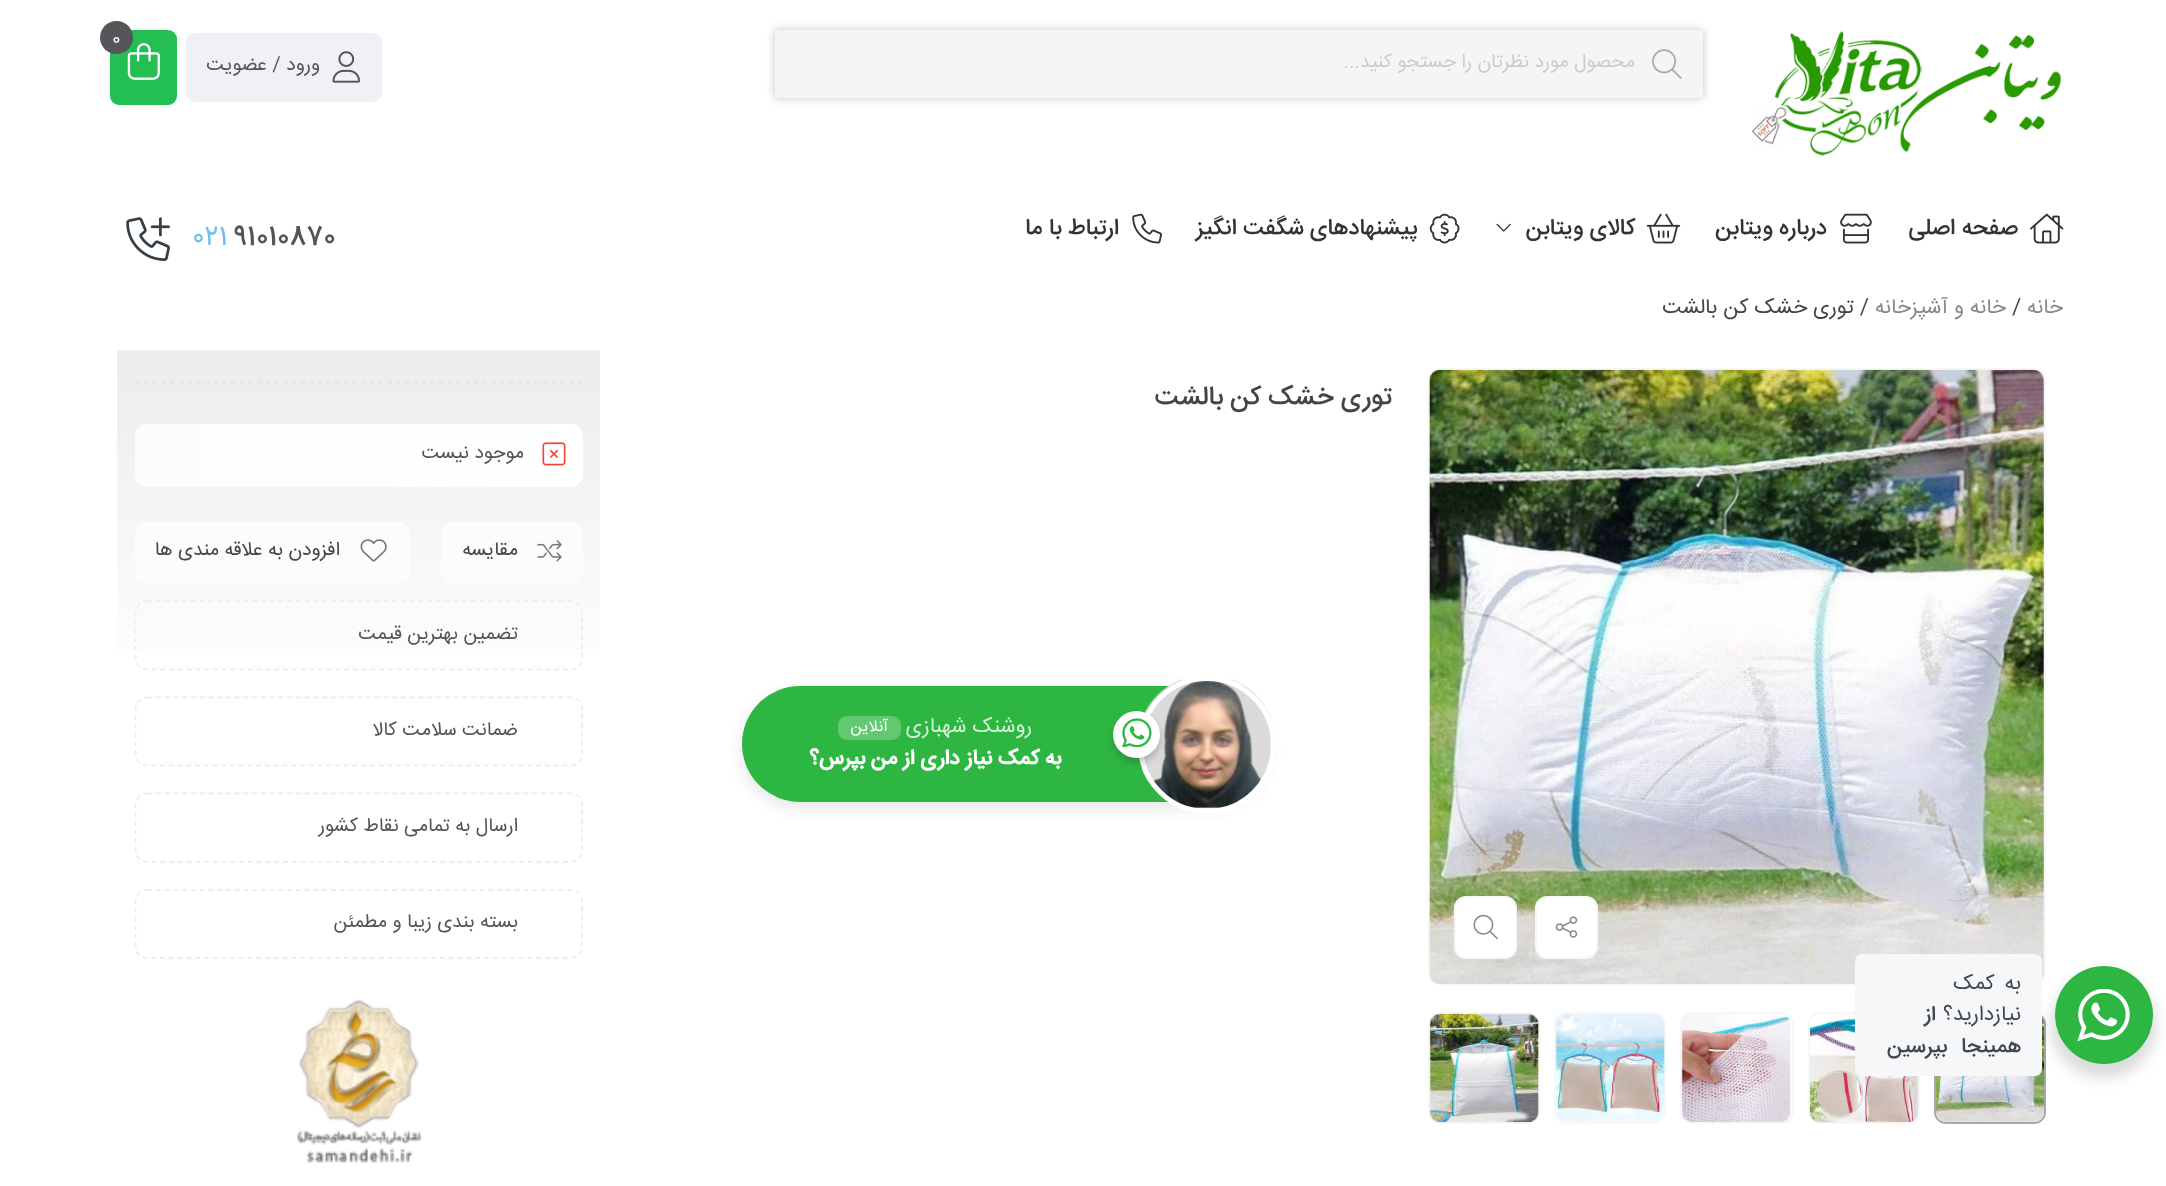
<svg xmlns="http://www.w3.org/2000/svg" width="2166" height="1186">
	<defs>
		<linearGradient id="g1" gradientUnits="userSpaceOnUse" x1="359" y1="350" x2="359" y2="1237"><stop offset="0" stop-color="#ECECEC" /><stop offset="0.39" stop-color="#FFFFFF" /></linearGradient>
		<linearGradient id="g2" gradientUnits="userSpaceOnUse" x1="135" y1="455" x2="583" y2="455"><stop offset="0" stop-color="#FCFCFC" /><stop offset="1" stop-color="#FFFFFF" /></linearGradient>
	</defs>
	<rect width="100%" height="100%" fill="#FFFFFF" />
	<image x="1752" y="30" width="309" height="126" href="assets/img1.png" />
	<rect x="775" y="30" width="928" height="68" fill="#000000" fill-opacity="0.23" filter="blur(4.5px)" />
	<rect x="775" y="30" width="928" height="68" fill="#F5F5F5" />
	<image x="1652" y="49" width="30" height="30" href="assets/img2.png" />
	<text x="1635" y="67" font-family="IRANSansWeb" font-size="19.25" direction="rtl" fill="#CBCCD2">محصول مورد نظرتان را جستجو کنید...</text>
	<rect x="186" y="33" width="196" height="69" rx="9" fill="#EFF1F5" />
	<rect x="116" y="37" width="56" height="65" rx="4" fill="#000000" fill-opacity="0.1" filter="blur(6px)" />
	<rect x="110" y="30" width="67" height="75" rx="9" fill="#23BF53" />
	<image x="127" y="43" width="33" height="37" href="assets/img3.png" />
	<circle cx="116.5" cy="37.5" r="16.5" fill="#55555A" />
	<text x="112" y="44" font-family="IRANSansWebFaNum" font-size="18" fill="#FFFFFF">0</text>
	<image x="332" y="51" width="28" height="32" href="assets/img4.png" />
	<text x="320" y="70" font-family="IRANSansWebFaNum" font-size="19.25" direction="rtl" fill="#555555">ورود / عضویت</text>
	<image x="2030" y="213" width="34" height="31" href="assets/img5.png" />
	<text x="2018" y="234" font-family="IRANSansWeb" font-size="22.75" font-weight="500" direction="rtl" fill="#333333">صفحه اصلی</text>
	<image x="1840" y="213" width="32" height="31" href="assets/img6.png" />
	<text x="1827" y="234" font-family="IRANSansWeb" font-size="22.75" font-weight="500" direction="rtl" fill="#333333">درباره ویتابن</text>
	<image x="1646" y="213" width="35" height="31" href="assets/img7.png" />
	<text x="1635" y="234" font-family="IRANSansWeb" font-size="22.75" font-weight="500" direction="rtl" fill="#333333">کالای ویتابن</text>
	<image x="1496" y="223" width="15" height="9" href="assets/img8.png" />
	<image x="1429" y="213" width="31" height="31" href="assets/img9.png" />
	<text x="1418" y="234" font-family="IRANSansWeb" font-size="22.75" font-weight="500" direction="rtl" fill="#333333">پیشنهادهای شگفت انگیز</text>
	<image x="1132" y="213" width="30" height="31" href="assets/img10.png" />
	<text x="1119" y="234" font-family="IRANSansWeb" font-size="22.75" font-weight="500" direction="rtl" fill="#333333">ارتباط با ما</text>
	<text x="233" y="244" font-family="IRANSansWebFaNum" font-size="26.25" font-weight="500" fill="#555555">91010870</text>
	<text x="192" y="244" font-family="IRANSansWebFaNum" font-size="26.25" fill="#6EC1E4">021</text>
	<image x="126" y="217" width="44" height="44" href="assets/img11.png" />
	<text x="2063" y="313" font-family="IRANSansWeb" font-size="21" direction="rtl" fill="#888888">خانه</text>
	<text x="2012" y="313" font-family="IRANSansWeb" font-size="21" fill="#414648">/</text>
	<text x="2006" y="313" font-family="IRANSansWeb" font-size="21" direction="rtl" fill="#888888">خانه و آشپزخانه</text>
	<text x="1869" y="313" font-family="IRANSansWeb" font-size="21" direction="rtl" fill="#414648">/ توری خشک کن بالشت</text>
	<rect x="1429" y="369" width="616" height="615" rx="11" fill="none" stroke="#F7F7F7" stroke-width="2" />
	<image x="1429" y="369" width="615" height="615" href="assets/img12.png" />
	<rect x="1536" y="897" width="61" height="61" rx="11" fill="#FFFFFF" stroke="#F7F7F7" stroke-width="2" />
	<image x="1555" y="916" width="23" height="22" href="assets/img13.png" />
	<rect x="1455" y="897" width="61" height="61" rx="11" fill="#FFFFFF" stroke="#F7F7F7" stroke-width="2" />
	<image x="1473" y="914" width="25" height="26" href="assets/img14.png" />
	<rect x="1935" y="1013" width="110" height="110" rx="11" fill="none" stroke="#A8A8A8" stroke-width="2" />
	<image x="1935" y="1018" width="110" height="105" href="assets/img15.png" />
	<rect x="1809" y="1013" width="110" height="110" rx="11" fill="none" stroke="#F7F7F7" stroke-width="2" />
	<image x="1809" y="1013" width="110" height="110" href="assets/img16.png" />
	<rect x="1681" y="1013" width="112" height="110" rx="11" fill="none" stroke="#F7F7F7" stroke-width="2" />
	<image x="1681" y="1014" width="110" height="108" href="assets/img17.png" />
	<rect x="1555" y="1013" width="110" height="110" rx="11" fill="none" stroke="#F7F7F7" stroke-width="2" />
	<image x="1555" y="1014" width="110" height="108" href="assets/img18.png" />
	<rect x="1429" y="1013" width="110" height="110" rx="11" fill="none" stroke="#F7F7F7" stroke-width="2" />
	<image x="1429" y="1013" width="110" height="110" href="assets/img19.png" />
	<text x="1392" y="404" font-family="IRANSansWeb" font-size="26.25" font-weight="500" direction="rtl" fill="#414648">توری خشک کن بالشت</text>
	<rect x="740" y="691" width="529" height="119" rx="59.5" fill="#202025" fill-opacity="0.09" filter="blur(7px)" />
	<rect x="742" y="686" width="525" height="116" rx="58" fill="#2DB742" />
	<image x="1142" y="679" width="129" height="129" href="assets/img20.png" />
	<circle cx="1207" cy="745" r="66.5" fill="none" stroke="#FFFFFF" stroke-width="5" />
	<rect x="1113" y="716" width="47" height="47" rx="23.5" fill="#272626" fill-opacity="0.26" filter="blur(3.5px)" />
	<circle cx="1136.5" cy="734.5" r="23.5" fill="#FFFFFF" />
	<image x="1122" y="718" width="30" height="29" href="assets/img21.png" />
	<text x="1032" y="732" font-family="IRANSansWeb" font-size="21" direction="rtl" fill="#D5F0D9">روشنک شهبازی</text>
	<rect x="838" y="716" width="63" height="24" rx="9" fill="#62C971" />
	<text x="888" y="731" font-family="IRANSansWeb" font-size="16" direction="rtl" fill="#FFFFFF">آنلاین</text>
	<text x="1061" y="764" font-family="IRANSansWeb" font-size="21" font-weight="700" direction="rtl" fill="#FFFFFF">به کمک نیاز داری از من بپرس؟</text>
	<rect x="117" y="350" width="483" height="300" fill="url(#g1)" />
	<path d="M135 382.5H583" fill="none" stroke="#DFE3E9" stroke-width="1.8" stroke-dasharray="5.25 3.43" />
	<rect x="135" y="424" width="448" height="63" rx="12" fill="url(#g2)" />
	<image x="542" y="442" width="24" height="24" href="assets/img22.png" />
	<text x="524" y="458" font-family="IRANSansWeb" font-size="19.25" direction="rtl" fill="#555555">موجود نیست</text>
	<rect x="441" y="522" width="142" height="61" rx="12" fill="#FCFCFC" />
	<image x="537" y="540" width="25" height="22" href="assets/img23.png" />
	<text x="518" y="555" font-family="IRANSansWeb" font-size="19.25" direction="rtl" fill="#414648">مقایسه</text>
	<rect x="135" y="522" width="275" height="61" rx="12" fill="#FCFCFC" />
	<image x="360" y="539" width="27" height="23" href="assets/img24.png" />
	<text x="340" y="555" font-family="IRANSansWeb" font-size="19.25" direction="rtl" fill="#414648">افزودن به علاقه مندی ها</text>
	<path d="M147 601H570.5C577 601 582 606 582 612.5V658C582 664.5 577 669.5 570.5 669.5H147C140.5 669.5 135.5 664.5 135.5 658V612.5C135.5 606 140.5 601 147 601Z" fill="none" stroke="#EEEEEE" stroke-width="1.8" stroke-dasharray="5.25 3.5" />
	<text x="518" y="639" font-family="IRANSansWeb" font-size="19.25" direction="rtl" fill="#555555">تضمین بهترین قیمت</text>
	<path d="M147 697.5H570.5C577 697.5 582 702.5 582 709V754C582 760.5 577 765.5 570.5 765.5H147C140.5 765.5 135.5 760.5 135.5 754V709C135.5 702.5 140.5 697.5 147 697.5Z" fill="none" stroke="#EEEEEE" stroke-width="1.8" stroke-dasharray="5.25 3.5" />
	<text x="518" y="735" font-family="IRANSansWeb" font-size="19.25" direction="rtl" fill="#555555">ضمانت سلامت کالا</text>
	<path d="M147 793.5H570.5C577 793.5 582 798.5 582 805V850.5C582 857 577 862 570.5 862H147C140.5 862 135.5 857 135.5 850.5V805C135.5 798.5 140.5 793.5 147 793.5Z" fill="none" stroke="#EEEEEE" stroke-width="1.8" stroke-dasharray="5.25 3.5" />
	<text x="518" y="831" font-family="IRANSansWeb" font-size="19.25" direction="rtl" fill="#555555">ارسال به تمامی نقاط کشور</text>
	<path d="M147 890H570.5C577 890 582 895 582 901V947C582 953 577 958 570.5 958H147C140.5 958 135.5 953 135.5 947V901C135.5 895 140.5 890 147 890Z" fill="none" stroke="#EEEEEE" stroke-width="1.8" stroke-dasharray="5.25 3.5" />
	<text x="518" y="927" font-family="IRANSansWeb" font-size="19.25" direction="rtl" fill="#555555">بسته بندی زیبا و مطمئن</text>
	<image x="297" y="999" width="126" height="164" href="assets/img25.png" />
	<rect x="2051" y="973" width="105" height="105" rx="52.5" fill="#000000" fill-opacity="0.14" filter="blur(7px)" />
	<circle cx="2104" cy="1015" r="49" fill="#2DB742" />
	<image x="2077" y="989" width="53" height="52" href="assets/img26.png" />
	<rect x="1855" y="954" width="187" height="122" rx="7" fill="#F5F7F9" />
	<g font-family="IRANSansWeb" font-size="21" letter-spacing="-0.6" direction="rtl" fill="#43474E">
		<text x="2021" y="989" word-spacing="4">به کمک</text>
		<text x="2021" y="1020">نیازدارید؟</text>
	</g>
	<g font-family="IRANSansWeb" font-size="21" font-weight="500" letter-spacing="-0.6" direction="rtl" fill="#43474E">
		<text x="1936" y="1020">از</text>
		<text x="2021" y="1052" word-spacing="8">همینجا بپرسین</text>
	</g>
</svg>
